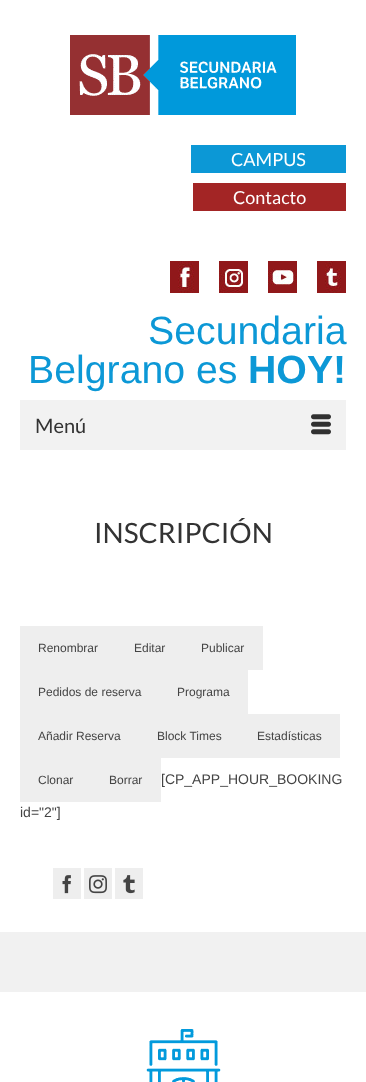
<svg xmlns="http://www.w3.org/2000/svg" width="366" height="1082">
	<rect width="100%" height="100%" fill="#FFFFFF" />
	<image x="70" y="35" width="226" height="80" href="assets/img1.png" />
	<rect x="191" y="145" width="155" height="28" fill="#0C98D6" />
	<text x="231" y="166" font-family="Lato" font-size="18" fill="#FFFFFF">CAMPUS</text>
	<rect x="193" y="183" width="153" height="28" fill="#A32525" />
	<text x="233" y="204" font-family="Lato" font-size="18" fill="#FFFFFF">Contacto</text>
	<image x="170" y="261" width="29" height="32" href="assets/img2.png" />
	<image x="219" y="261" width="29" height="32" href="assets/img3.png" />
	<image x="268" y="261" width="29" height="32" href="assets/img4.png" />
	<image x="317" y="261" width="29" height="32" href="assets/img5.png" />
	<g font-family="Liberation Sans" font-size="39.25" fill="#0C98D6">
		<text x="148" y="344">Secundaria</text>
		<text x="28" y="383">Belgrano es</text>
	</g>
	<text x="248" y="383" font-family="Liberation Sans" font-size="39.25" font-weight="700" fill="#0C98D6">HOY!</text>
	<rect x="20" y="400" width="326" height="50" fill="#F2F2F2" />
	<text x="35" y="433" font-family="Lato" font-size="20" fill="#333333">Menú</text>
	<image x="311" y="414" width="20" height="21" href="assets/img6.png" />
	<text x="94" y="543" font-family="Lato" font-size="28" fill="#333333">INSCRIPCIÓN</text>
	<rect x="20" y="626" width="243" height="44" fill="#EEEEEE" />
	<g font-family="Liberation Sans" font-size="12" fill="#444444">
		<text x="38" y="652">Renombrar</text>
		<text x="134" y="652">Editar</text>
		<text x="201" y="652">Publicar</text>
	</g>
	<rect x="20" y="670" width="228" height="44" fill="#EEEEEE" />
	<g font-family="Liberation Sans" font-size="12" fill="#444444">
		<text x="38" y="696">Pedidos de reserva</text>
		<text x="177" y="696">Programa</text>
	</g>
	<rect x="20" y="714" width="320" height="44" fill="#EEEEEE" />
	<g font-family="Liberation Sans" font-size="12" fill="#444444">
		<text x="38" y="740">Añadir Reserva</text>
		<text x="157" y="740">Block Times</text>
		<text x="257" y="740">Estadísticas</text>
	</g>
	<rect x="20" y="758" width="141" height="44" fill="#EEEEEE" />
	<g font-family="Liberation Sans" font-size="12" fill="#444444">
		<text x="38" y="784">Clonar</text>
		<text x="109" y="784">Borrar</text>
	</g>
	<g font-family="Liberation Sans" font-size="14" fill="#444444">
		<text x="161" y="784">[CP_APP_HOUR_BOOKING</text>
		<text x="20" y="817">id="2"]</text>
	</g>
	<rect x="53" y="868" width="28" height="31" fill="#EEEEEE" />
	<image x="62" y="875" width="9" height="19" href="assets/img7.png" />
	<rect x="84" y="868" width="28" height="31" fill="#EEEEEE" />
	<image x="89" y="875" width="18" height="19" href="assets/img8.png" />
	<rect x="115" y="868" width="28" height="31" fill="#EEEEEE" />
	<image x="123" y="875" width="12" height="19" href="assets/img9.png" />
	<rect x="0" y="932" width="366" height="60" fill="#F1F1F1" />
	<image x="146" y="1029" width="75" height="53" href="assets/img10.png" />
</svg>
